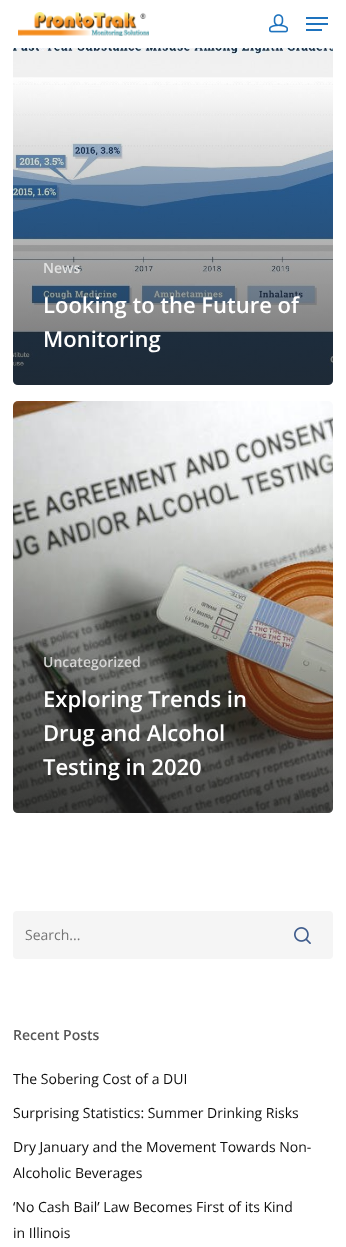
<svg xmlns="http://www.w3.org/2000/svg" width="346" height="1247">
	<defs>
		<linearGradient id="g1" gradientUnits="userSpaceOnUse" x1="174" y1="77" x2="174" y2="387"><stop offset="0" stop-color="#232323" stop-opacity="0" /><stop offset="1" stop-color="#232323" stop-opacity="0.65" /></linearGradient>
		<linearGradient id="g2" gradientUnits="userSpaceOnUse" x1="174" y1="504" x2="174" y2="815"><stop offset="0" stop-color="#232323" stop-opacity="0" /><stop offset="1" stop-color="#232323" stop-opacity="0.65" /></linearGradient>
	</defs>
	<rect width="100%" height="100%" fill="#FFFFFF" />
	<image x="18" y="12" width="131" height="24" href="assets/img1.png" />
	<image x="269" y="14" width="19" height="19" href="assets/img2.png" />
	<rect x="306" y="17" width="22" height="2" fill="#1E73BE" />
	<rect x="306" y="29" width="16" height="2" fill="#1E73BE" />
	<rect x="306" y="23" width="22" height="2" fill="#1E73BE" />
	<image x="13" y="48" width="320" height="337" href="assets/img3.png" />
	<path d="M13 77H333V380C333 383 331 385 328 385H18C15 385 13 383 13 380Z" fill="url(#g1)" />
	<text x="43" y="273" font-family="Open Sans" font-size="14" font-weight="600" fill="#E1E2E2">News</text>
	<g font-family="Open Sans" font-size="22" font-weight="600" fill="#FFFFFF">
		<text x="43" y="313">Looking to the Future of</text>
		<text x="43" y="347">Monitoring</text>
	</g>
	<image x="13" y="401" width="320" height="412" href="assets/img4.png" />
	<path d="M13 504H333V808C333 811 331 813 328 813H18C15 813 13 811 13 808Z" fill="url(#g2)" />
	<text x="43" y="667" font-family="Open Sans" font-size="14" font-weight="600" fill="#D5D5D4">Uncategorized</text>
	<g font-family="Open Sans" font-size="22" font-weight="600" fill="#FFFFFF">
		<text x="43" y="707">Exploring Trends in</text>
		<text x="43" y="741">Drug and Alcohol</text>
		<text x="43" y="775">Testing in 2020</text>
	</g>
	<rect x="13" y="911" width="320" height="48" rx="4" fill="#F5F5F5" />
	<text x="25" y="940" font-family="Open Sans" font-size="14" fill="#757575">Search...</text>
	<image x="294" y="927" width="17" height="17" href="assets/img5.png" />
	<text x="13" y="1040" font-family="Open Sans" font-size="14" font-weight="600" fill="#565656">Recent Posts</text>
	<g font-family="Open Sans" font-size="14" fill="#0E0E0E">
		<text x="13" y="1084">The Sobering Cost of a DUI</text>
		<text x="13" y="1118">Surprising Statistics: Summer Drinking Risks</text>
		<text x="13" y="1152">Dry January and the Movement Towards Non-</text>
		<text x="13" y="1178">Alcoholic Beverages</text>
		<text x="13" y="1212">‘No Cash Bail’ Law Becomes First of its Kind</text>
		<text x="13" y="1238">in Illinois</text>
	</g>
</svg>
